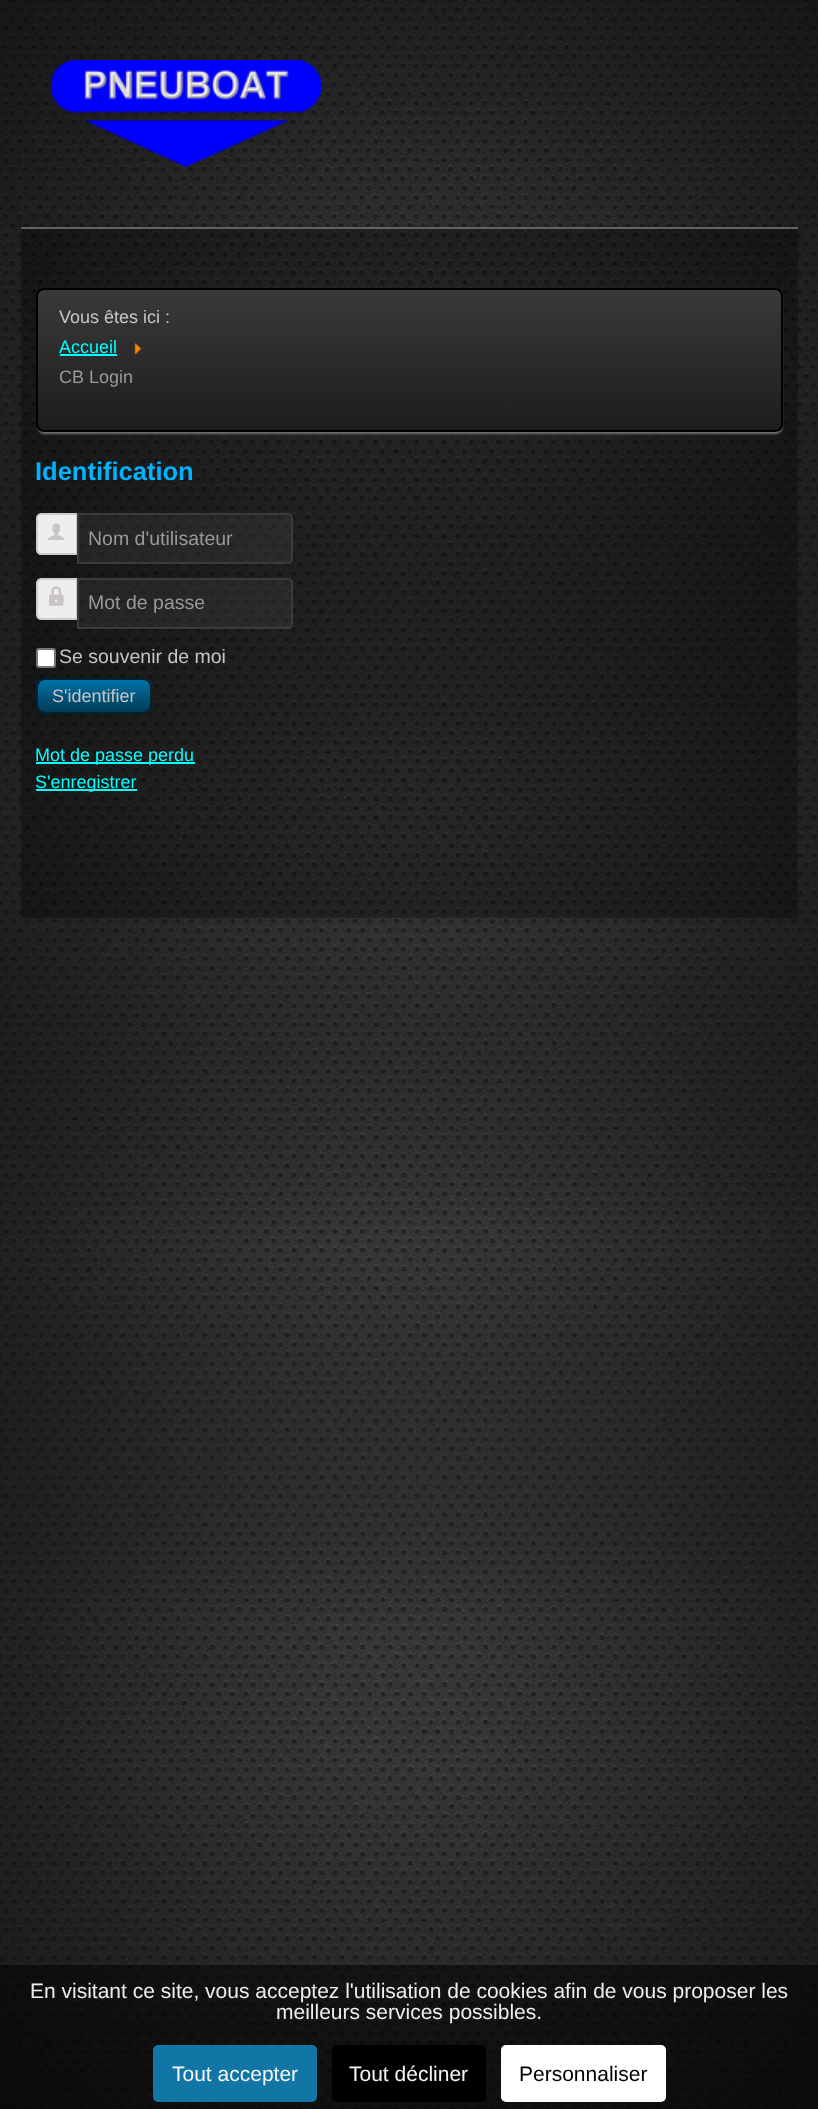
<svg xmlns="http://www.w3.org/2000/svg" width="818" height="2109">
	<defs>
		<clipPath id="clip1"><rect x="36" y="288" width="747" height="144" rx="8" /></clipPath>
		<linearGradient id="g1" gradientUnits="userSpaceOnUse" x1="38" y1="290" x2="38" y2="431"><stop offset="0" stop-color="#393939" /><stop offset="1" stop-color="#1D1D1D" /></linearGradient>
		<clipPath id="clip2"><rect x="36" y="678" width="116" height="36" rx="9" /></clipPath>
		<linearGradient id="g2" gradientUnits="userSpaceOnUse" x1="38" y1="680" x2="38" y2="713"><stop offset="0" stop-color="#0272A7" /><stop offset="1" stop-color="#013953" /></linearGradient>
	</defs>
	<rect width="100%" height="100%" fill="#FFFFFF" />
	<image x="0" y="0" width="818" height="2109" href="assets/img1.png" />
	<image x="51" y="60" width="270" height="107" href="assets/img2.png" />
	<rect x="21" y="229" width="777" height="689" fill="#000000" fill-opacity="0.3" />
	<rect x="21" y="227" width="777" height="2" fill="#636363" />
	<rect x="38" y="293" width="744" height="141" rx="6" fill="#737373" filter="blur(1px)" />
	<g clip-path="url(#clip1)">
		<rect x="36" y="290" width="747" height="141" fill="url(#g1)" />
	</g>
	<rect x="37" y="289" width="745" height="142" rx="7" fill="none" stroke="#000000" stroke-width="2" />
	<text x="59" y="323" font-family="Liberation Sans" font-size="18" fill="#CAC5C5">Vous êtes ici :</text>
	<text x="59" y="353" font-family="Liberation Sans" font-size="18" fill="#00FFFF">Accueil</text>
	<rect x="60" y="354" width="57" height="2" fill="#00FFFF" />
	<image x="134" y="343" width="8" height="11" href="assets/img3.png" />
	<text x="59" y="383" font-family="Liberation Sans" font-size="18" fill="#999999">CB Login</text>
	<text x="35" y="480" font-family="Liberation Sans" font-size="25.5" font-weight="700" fill="#00B3FF">Identification</text>
	<path d="M41 514H77V554H41C39 554 37 552 37 550V518C37 516 39 514 41 514Z" fill="#EEEEEE" stroke="#CCCCCC" stroke-width="2" />
	<image x="47" y="523" width="18" height="17" href="assets/img4.png" />
	<path d="M77 513H288C291 513 293 515 293 518V559C293 562 291 564 288 564H77Z" fill="#474747" fill-opacity="0.3" />
	<path d="M78 516H288C290 516 291 517 291 519V518C291 516 290 515 288 515H78Z" fill="#000000" fill-opacity="0.07" />
	<path d="M78 514H288C290 514 292 516 292 518V559C292 561 290 563 288 563H78Z" fill="none" stroke="#3B3B3B" stroke-width="2" />
	<text x="88" y="545" font-family="Liberation Sans" font-size="19.5" fill="#999999">Nom d'utilisateur</text>
	<path d="M41 579H77V619H41C39 619 37 617 37 615V583C37 581 39 579 41 579Z" fill="#EEEEEE" stroke="#CCCCCC" stroke-width="2" />
	<image x="49" y="586" width="15" height="20" href="assets/img5.png" />
	<path d="M77 578H288C291 578 293 580 293 583V624C293 627 291 629 288 629H77Z" fill="#474747" fill-opacity="0.3" />
	<path d="M78 580H289L290 581L291 584C291 582 291 579 288 579H78Z" fill="#000000" fill-opacity="0.07" />
	<path d="M78 579H288C290 579 292 581 292 583V624C292 626 290 628 288 628H78Z" fill="none" stroke="#3B3B3B" stroke-width="2" />
	<text x="88" y="609" font-family="Liberation Sans" font-size="19.5" fill="#999999">Mot de passe</text>
	<rect x="37" y="649" width="18" height="18" rx="2" fill="#FFFFFF" stroke="#767676" stroke-width="2" />
	<text x="59" y="663" font-family="Liberation Sans" font-size="19.5" fill="#CAC5C5">Se souvenir de moi</text>
	<g clip-path="url(#clip2)">
		<rect x="36" y="680" width="116" height="33" fill="url(#g2)" />
	</g>
	<rect x="37" y="679" width="114" height="34" rx="8" fill="none" stroke="#002232" stroke-width="2" />
	<text x="52" y="702" font-family="Liberation Sans" font-size="18" fill="#CAC5C5">S'identifier</text>
	<rect x="36" y="762" width="159" height="2" fill="#00FFFF" />
	<text x="35" y="761" font-family="Liberation Sans" font-size="18" fill="#00FFFF">Mot de passe perdu</text>
	<rect x="36" y="789" width="101" height="2" fill="#00FFFF" />
	<text x="35" y="788" font-family="Liberation Sans" font-size="18" fill="#00FFFF">S'enregistrer</text>
	<rect x="0" y="1965" width="818" height="144" fill="#000000" fill-opacity="0.5" />
	<g font-family="Liberation Sans" font-size="21" fill="#EEEEEE">
		<text x="30" y="1998">En visitant ce site, vous acceptez l'utilisation de cookies afin de vous proposer les</text>
		<text x="276" y="2019">meilleurs services possibles.</text>
	</g>
	<rect x="154.5" y="2046.5" width="161" height="54" rx="3.5" fill="#1176A6" stroke="#1176A6" stroke-width="3" />
	<text x="172" y="2081" font-family="Liberation Sans" font-size="21" fill="#F5F5F5">Tout accepter</text>
	<rect x="333.5" y="2046.5" width="151" height="54" rx="3.5" fill="#000000" stroke="#000000" stroke-width="3" />
	<text x="349" y="2081" font-family="Liberation Sans" font-size="21" fill="#F5F5F5">Tout décliner</text>
	<rect x="502.5" y="2046.5" width="162" height="54" rx="3.5" fill="#FFFFFF" stroke="#FFFFFF" stroke-width="3" />
	<text x="519" y="2081" font-family="Liberation Sans" font-size="21" fill="#000000">Personnaliser</text>
</svg>
